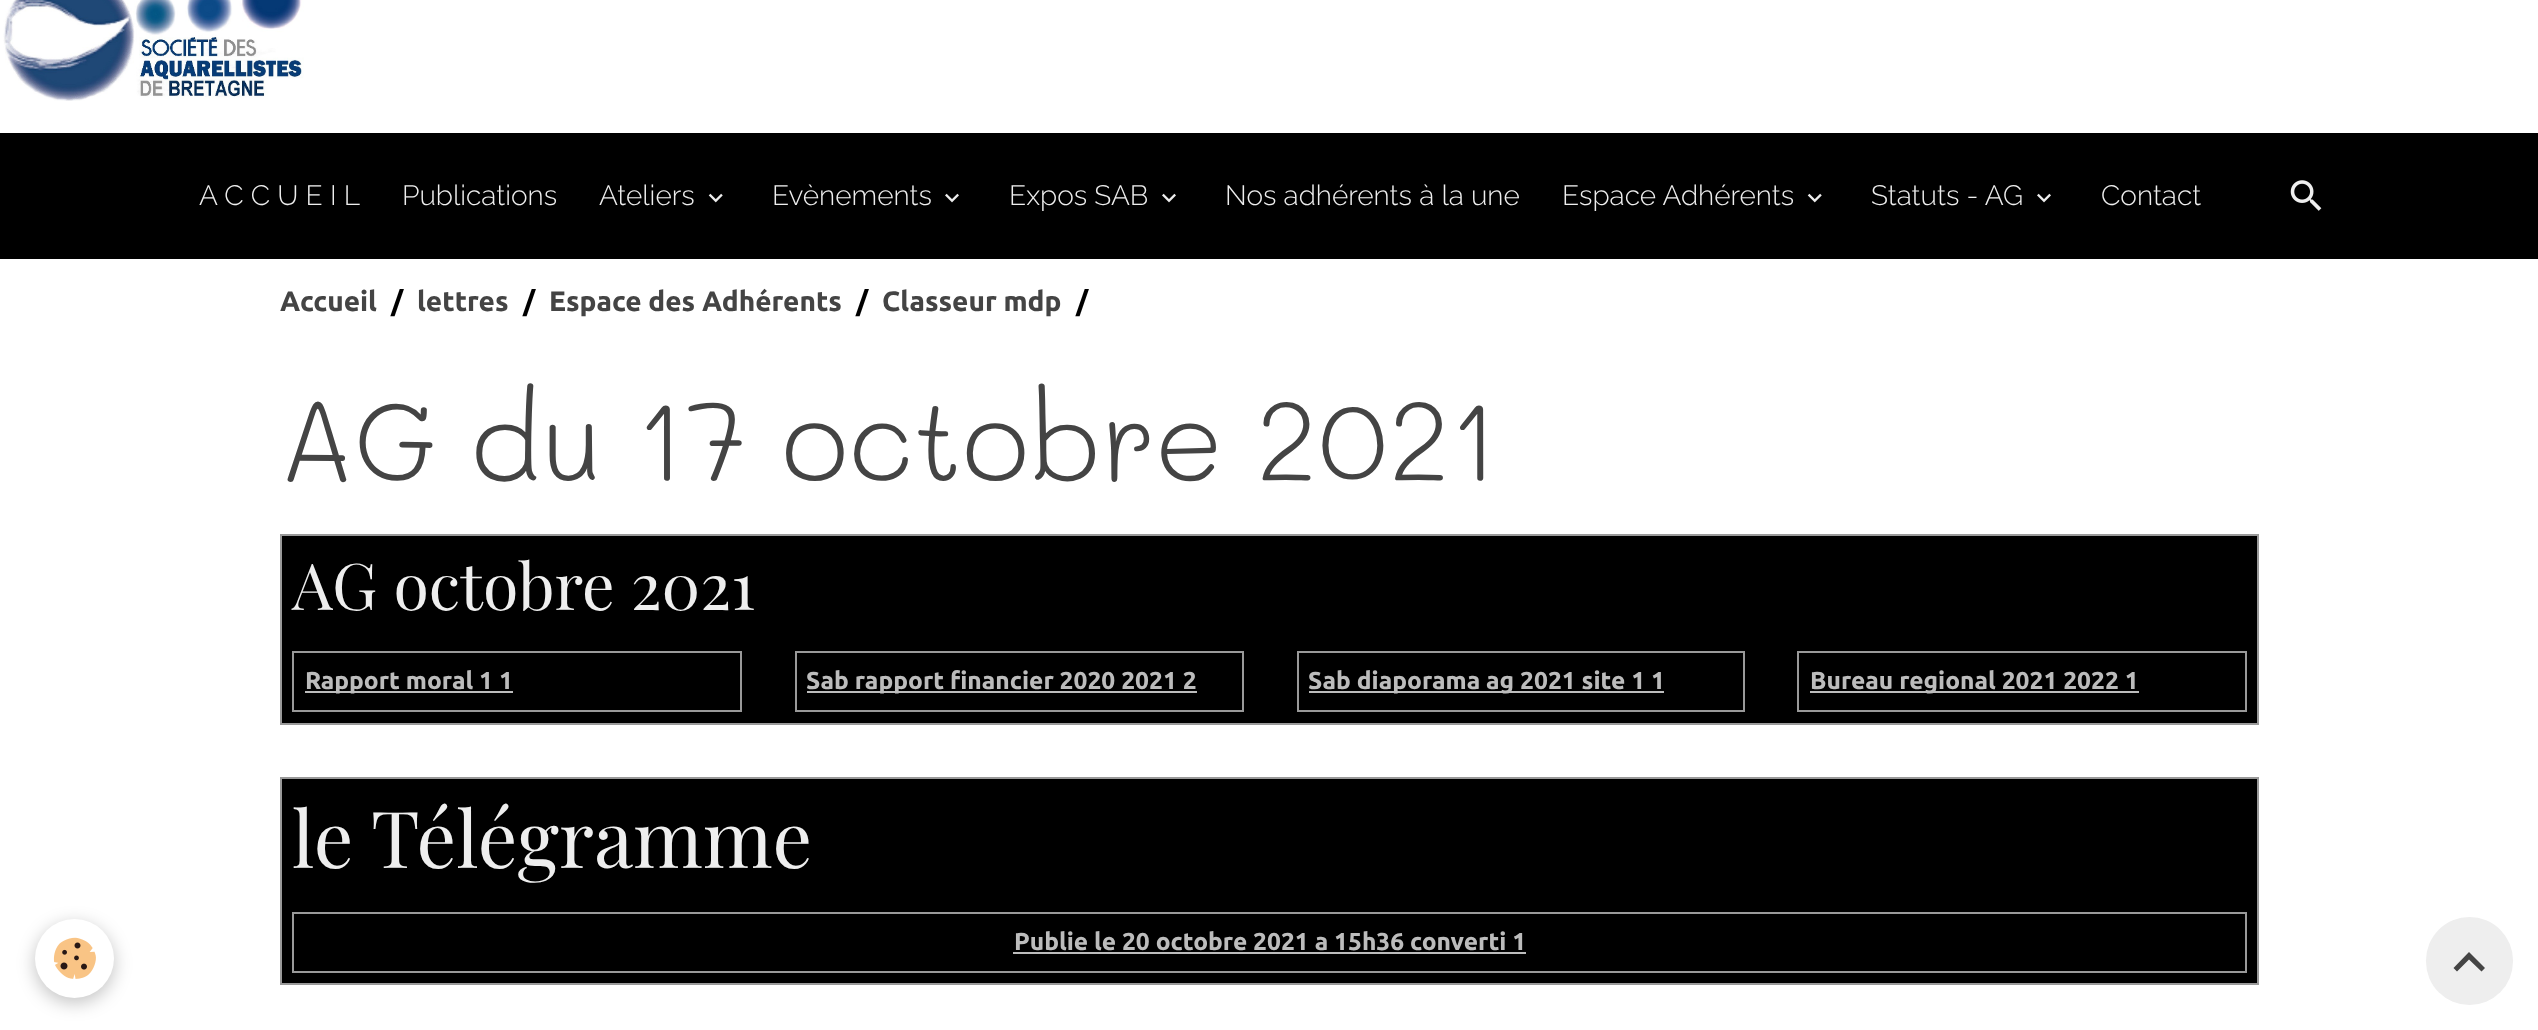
<svg xmlns="http://www.w3.org/2000/svg" width="2538" height="1030">
	<rect width="100%" height="100%" fill="#FFFFFF" />
	<image x="3" y="0" width="301" height="101" href="assets/img1.png" />
	<rect x="0" y="133" width="2538" height="126" fill="#000000" />
	<g font-family="Raleway" font-size="28" font-weight="300" fill="#EEEEEE">
		<text x="199" y="205">A C C U E I L</text>
		<text x="402" y="205">Publications</text>
		<text x="599" y="205">Ateliers</text>
	</g>
	<image x="708" y="193" width="15" height="10" href="assets/img2.png" />
	<text x="772" y="205" font-family="Raleway" font-size="28" font-weight="300" fill="#EEEEEE">Evènements</text>
	<image x="945" y="193" width="14" height="10" href="assets/img3.png" />
	<text x="1009" y="205" font-family="Raleway" font-size="28" font-weight="300" fill="#EEEEEE">Expos SAB</text>
	<image x="1162" y="193" width="14" height="10" href="assets/img3.png" />
	<g font-family="Raleway" font-size="28" font-weight="300" fill="#EEEEEE">
		<text x="1225" y="205">Nos adhérents à la une</text>
		<text x="1562" y="205">Espace Adhérents</text>
	</g>
	<image x="1807" y="193" width="15" height="10" href="assets/img2.png" />
	<text x="1871" y="205" font-family="Raleway" font-size="28" font-weight="300" fill="#EEEEEE">Statuts - AG</text>
	<image x="2037" y="193" width="14" height="10" href="assets/img3.png" />
	<text x="2101" y="205" font-family="Raleway" font-size="28" font-weight="300" fill="#EEEEEE">Contact</text>
	<image x="2290" y="180" width="32" height="31" href="assets/img4.png" />
	<rect x="35" y="924" width="79" height="79" rx="39.5" fill="#000000" fill-opacity="0.24" filter="blur(9px)" />
	<circle cx="74.5" cy="958.5" r="39.5" fill="#FFFFFF" />
	<image x="53" y="937" width="43" height="42" href="assets/img5.png" />
	<text x="280" y="311" font-family="Ubuntu" font-size="28" font-weight="700" fill="#444444">Accueil</text>
	<text x="391" y="311" font-family="Ubuntu" font-size="28" font-weight="700" fill="#000000">/</text>
	<text x="417" y="311" font-family="Ubuntu" font-size="28" font-weight="700" fill="#444444">lettres</text>
	<text x="523" y="311" font-family="Ubuntu" font-size="28" font-weight="700" fill="#000000">/</text>
	<text x="549" y="311" font-family="Ubuntu" font-size="28" font-weight="700" fill="#444444">Espace des Adhérents</text>
	<text x="856" y="311" font-family="Ubuntu" font-size="28" font-weight="700" fill="#000000">/</text>
	<text x="882" y="311" font-family="Ubuntu" font-size="28" font-weight="700" fill="#444444">Classeur mdp</text>
	<text x="1076" y="311" font-family="Ubuntu" font-size="28" font-weight="700" fill="#000000">/</text>
	<text x="280" y="481" font-family="Mali" font-size="112" font-weight="300" fill="#444444">AG du 17 octobre 2021</text>
	<rect x="281" y="535" width="1977" height="189" fill="#000000" stroke="#999999" stroke-width="2" />
	<text x="292" y="610" font-family="Playfair Display" font-size="64.5" fill="#EEEEEE">AG octobre 2021</text>
	<rect x="293" y="652" width="448" height="59" fill="none" stroke="#999999" stroke-width="2" />
	<rect x="305" y="691" width="208" height="2" fill="#BCBCBC" />
	<text x="305" y="689" font-family="Ubuntu" font-size="24.5" font-weight="700" fill="#BCBCBC">Rapport moral 1 1</text>
	<rect x="796" y="652" width="447" height="59" fill="none" stroke="#999999" stroke-width="2" />
	<rect x="807" y="691" width="390" height="2" fill="#BCBCBC" />
	<text x="806" y="689" font-family="Ubuntu" font-size="24.5" font-weight="700" fill="#BCBCBC">Sab rapport financier 2020 2021 2</text>
	<rect x="1298" y="652" width="446" height="59" fill="none" stroke="#999999" stroke-width="2" />
	<rect x="1309" y="691" width="355" height="2" fill="#BCBCBC" />
	<text x="1308" y="689" font-family="Ubuntu" font-size="24.5" font-weight="700" fill="#BCBCBC">Sab diaporama ag 2021 site 1 1</text>
	<rect x="1798" y="652" width="448" height="59" fill="none" stroke="#999999" stroke-width="2" />
	<rect x="1810" y="691" width="329" height="2" fill="#BCBCBC" />
	<text x="1810" y="689" font-family="Ubuntu" font-size="24.5" font-weight="700" fill="#BCBCBC">Bureau regional 2021 2022 1</text>
	<rect x="281" y="778" width="1977" height="206" fill="#000000" stroke="#999999" stroke-width="2" />
	<text x="292" y="868" font-family="Playfair Display" font-size="78.5" fill="#EEEEEE">le Télégramme</text>
	<rect x="293" y="913" width="1953" height="59" fill="none" stroke="#999999" stroke-width="2" />
	<text x="1014" y="950" font-family="Ubuntu" font-size="24.5" font-weight="700" fill="#BCBCBC">Publie le 20 octobre 2021 a 15h36 converti 1</text>
	<rect x="1013" y="952" width="513" height="2" fill="#BCBCBC" />
	<rect x="2426" y="917" width="87" height="88" rx="43.5" fill="#EEEEEE" />
	<path d="M2469 952L2485 968L2481.5 971.5L2469 959.5L2457 971.5L2453.5 968Z" fill="#444444" />
</svg>
